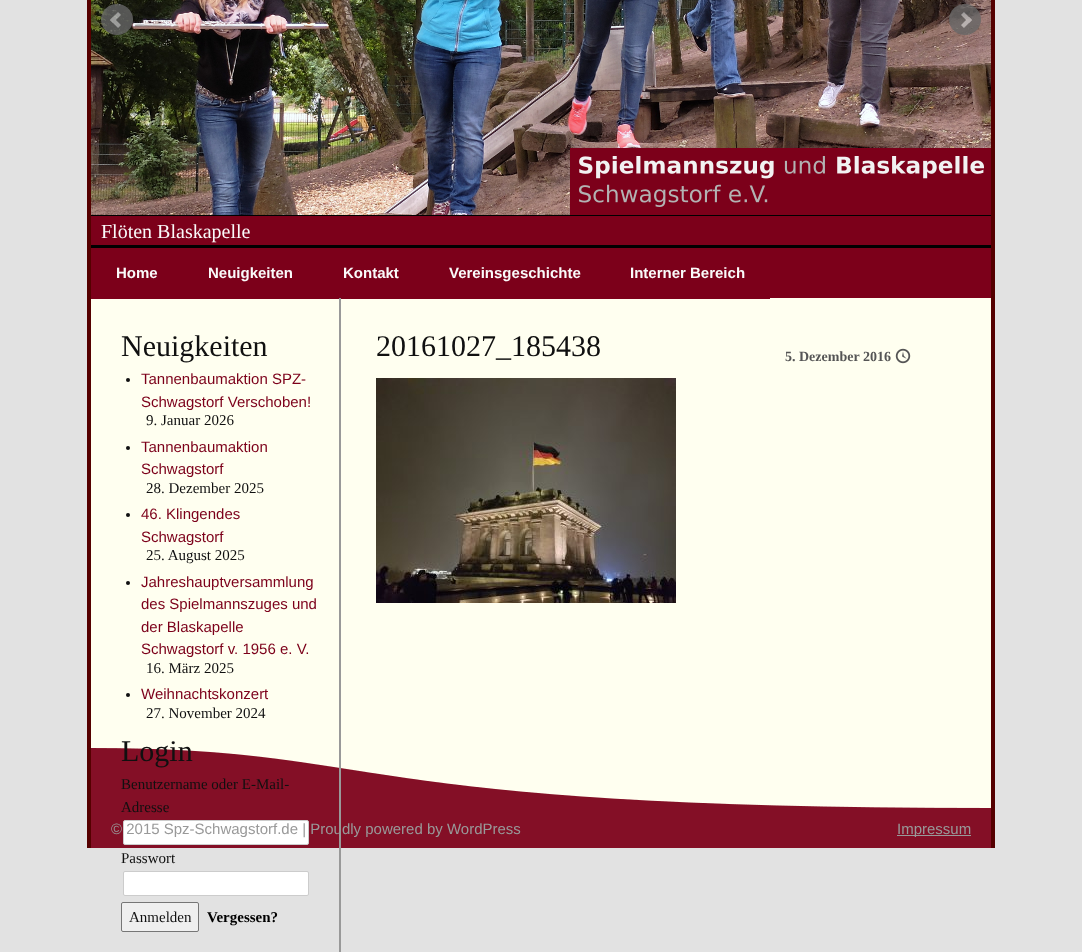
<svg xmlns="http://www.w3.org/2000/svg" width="1082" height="952">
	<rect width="100%" height="100%" fill="#E2E2E2" />
	<rect x="91" y="298" width="900" height="450" fill="#FFFFF0" />
	<rect x="991" y="0" width="4" height="848" fill="#550000" />
	<rect x="87" y="0" width="4" height="848" fill="#550000" />
	<image x="91" y="0" width="900" height="215" href="assets/img3.png" />
	<image x="101" y="4" width="32" height="31" href="assets/img1.png" />
	<image x="949" y="4" width="32" height="31" href="assets/img2.png" />
	<rect x="91" y="216" width="900" height="29" fill="#7C001A" />
	<rect x="91" y="215" width="900" height="1" fill="#000000" />
	<text x="101" y="238" font-family="Liberation Serif" font-size="20" fill="#FAFAFA">Flöten Blaskapelle</text>
	<rect x="91" y="245" width="900" height="3" fill="#000000" />
	<rect x="770" y="248" width="221" height="50" fill="#7C001A" />
	<rect x="91" y="248" width="679" height="51" fill="#7C001A" />
	<g font-family="Liberation Sans" font-size="15" font-weight="700" fill="#FAFAFA">
		<text x="116" y="278">Home</text>
		<text x="208" y="278">Neuigkeiten</text>
		<text x="343" y="278">Kontakt</text>
		<text x="449" y="278">Vereinsgeschichte</text>
		<text x="630" y="278">Interner Bereich</text>
	</g>
	<image x="91" y="748" width="900" height="100" href="assets/img6.png" />
	<rect x="339" y="298" width="2" height="654" fill="#999999" />
	<text x="121" y="356" font-family="Liberation Serif" font-size="30" fill="#101010">Neuigkeiten</text>
	<circle cx="128" cy="380" r="2" fill="#101010" />
	<g font-family="Liberation Sans" font-size="15" fill="#7C001A">
		<text x="141" y="384">Tannenbaumaktion SPZ-</text>
		<text x="141" y="407">Schwagstorf Verschoben!</text>
	</g>
	<text x="146" y="425" font-family="Liberation Serif" font-size="15" fill="#101010">9. Januar 2026</text>
	<circle cx="128" cy="448" r="2" fill="#101010" />
	<g font-family="Liberation Sans" font-size="15" fill="#7C001A">
		<text x="141" y="452">Tannenbaumaktion</text>
		<text x="141" y="474">Schwagstorf</text>
	</g>
	<text x="146" y="493" font-family="Liberation Serif" font-size="15" fill="#101010">28. Dezember 2025</text>
	<circle cx="128" cy="515" r="2" fill="#101010" />
	<g font-family="Liberation Sans" font-size="15" fill="#7C001A">
		<text x="141" y="519">46. Klingendes</text>
		<text x="141" y="542">Schwagstorf</text>
	</g>
	<text x="146" y="560" font-family="Liberation Serif" font-size="15" fill="#101010">25. August 2025</text>
	<circle cx="128" cy="583" r="2" fill="#101010" />
	<g font-family="Liberation Sans" font-size="15" fill="#7C001A">
		<text x="141" y="587">Jahreshauptversammlung</text>
		<text x="141" y="609">des Spielmannszuges und</text>
		<text x="141" y="632">der Blaskapelle</text>
		<text x="141" y="654">Schwagstorf v. 1956 e. V.</text>
	</g>
	<text x="146" y="673" font-family="Liberation Serif" font-size="15" fill="#101010">16. März 2025</text>
	<circle cx="128" cy="695" r="2" fill="#101010" />
	<text x="141" y="699" font-family="Liberation Sans" font-size="15" fill="#7C001A">Weihnachtskonzert</text>
	<text x="146" y="718" font-family="Liberation Serif" font-size="15" fill="#101010">27. November 2024</text>
	<text x="121" y="761" font-family="Liberation Serif" font-size="30" fill="#101010">Login</text>
	<g font-family="Liberation Serif" font-size="15" fill="#101010">
		<text x="121" y="789">Benutzername oder E-Mail-</text>
		<text x="121" y="812">Adresse</text>
	</g>
	<rect x="123.5" y="820.5" width="185" height="24" rx="1.5" fill="#FFFFFF" stroke="#CCCCCC" />
	<text x="121" y="863" font-family="Liberation Serif" font-size="15" fill="#101010">Passwort</text>
	<rect x="123.5" y="871.5" width="185" height="24" rx="1.5" fill="#FFFFFF" stroke="#CCCCCC" />
	<rect x="121.5" y="902.5" width="77" height="29" rx="1.5" fill="#EFEFEF" stroke="#767676" />
	<text x="129" y="922" font-family="Liberation Serif" font-size="15" fill="#101010">Anmelden</text>
	<text x="207" y="922" font-family="Liberation Serif" font-size="15" font-weight="700" fill="#000000">Vergessen?</text>
	<text x="376" y="356" font-family="Liberation Serif" font-size="30" fill="#101010">20161027_185438</text>
	<text x="785" y="361" font-family="Liberation Serif" font-size="14" font-weight="700" fill="#555555">5. Dezember 2016</text>
	<image x="895" y="348" width="16" height="16" href="assets/img4.png" />
	<image x="376" y="378" width="300" height="225" href="assets/img5.png" />
	<text x="111" y="834" font-family="Liberation Sans" font-size="15" fill="#999999">© 2015 Spz-Schwagstorf.de | Proudly powered by WordPress</text>
	<rect x="897" y="835" width="74" height="1" fill="#999999" />
	<text x="897" y="834" font-family="Liberation Sans" font-size="15" fill="#999999">Impressum</text>
</svg>
